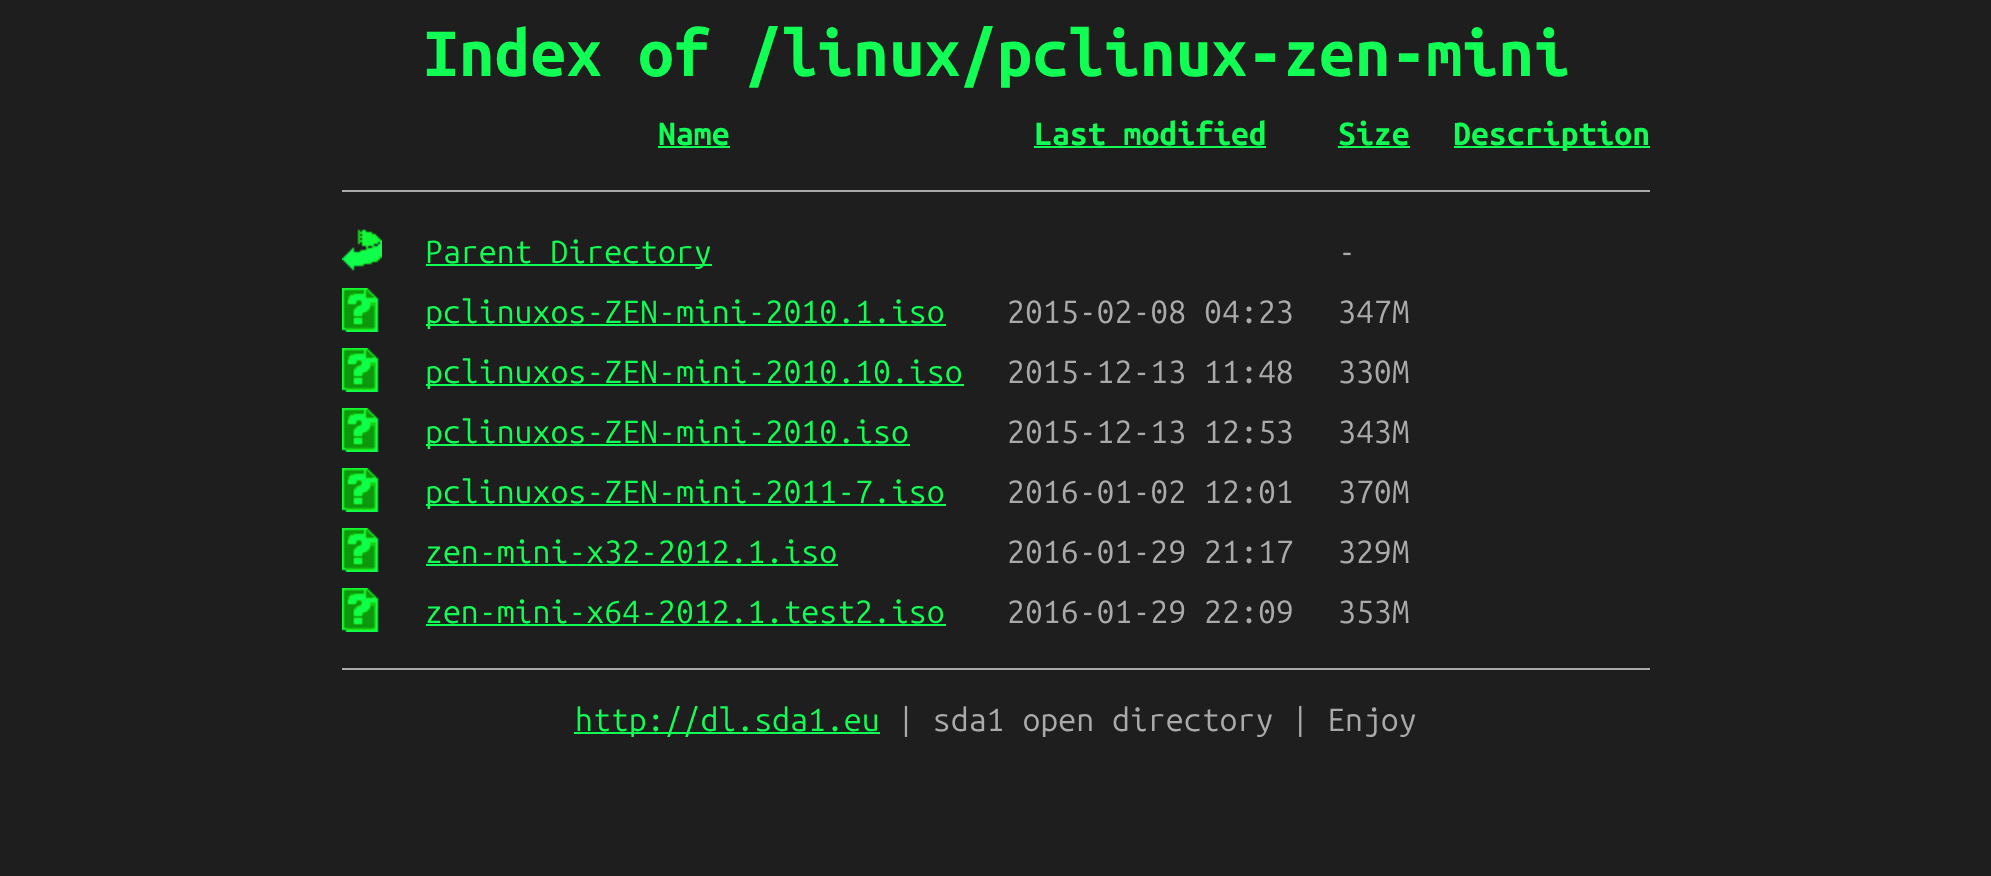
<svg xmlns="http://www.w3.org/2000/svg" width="1991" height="876">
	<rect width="100%" height="100%" fill="#1E1E1E" />
	<text x="423" y="76" font-family="Ubuntu Mono" font-size="64" font-weight="700" fill="#11FF55">Index of /linux/pclinux-zen-mini</text>
	<text x="658" y="145" font-family="Ubuntu Mono" font-size="32" font-weight="700" fill="#11FF55">Name</text>
	<rect x="658" y="146" width="72" height="2" fill="#11FF55" />
	<text x="1034" y="145" font-family="Ubuntu Mono" font-size="32" font-weight="700" fill="#11FF55">Last modified</text>
	<rect x="1034" y="146" width="232" height="2" fill="#11FF55" />
	<text x="1338" y="145" font-family="Ubuntu Mono" font-size="32" font-weight="700" fill="#11FF55">Size</text>
	<rect x="1338" y="146" width="72" height="2" fill="#11FF55" />
	<rect x="1454" y="146" width="196" height="2" fill="#11FF55" />
	<text x="1453" y="145" font-family="Ubuntu Mono" font-size="32" font-weight="700" fill="#11FF55">Description</text>
	<rect x="342" y="190" width="1308" height="2" fill="#AAAAAA" />
	<image x="342" y="229" width="40" height="42" href="assets/img1.png" />
	<rect x="426" y="264" width="286" height="2" fill="#11FF55" />
	<text x="425" y="263" font-family="Ubuntu Mono" font-size="32" fill="#11FF55">Parent Directory</text>
	<text x="1338" y="263" font-family="Ubuntu Mono" font-size="32" fill="#AAAAAA">-</text>
	<image x="342" y="288" width="37" height="44" href="assets/img2.png" />
	<rect x="426" y="324" width="520" height="2" fill="#11FF55" />
	<text x="425" y="323" font-family="Ubuntu Mono" font-size="32" fill="#11FF55">pclinuxos-ZEN-mini-2010.1.iso</text>
	<g font-family="Ubuntu Mono" font-size="32" fill="#AAAAAA">
		<text x="1007" y="323">2015-02-08 04:23</text>
		<text x="1338" y="323">347M</text>
	</g>
	<image x="342" y="348" width="37" height="44" href="assets/img2.png" />
	<rect x="426" y="384" width="538" height="2" fill="#11FF55" />
	<text x="425" y="383" font-family="Ubuntu Mono" font-size="32" fill="#11FF55">pclinuxos-ZEN-mini-2010.10.iso</text>
	<g font-family="Ubuntu Mono" font-size="32" fill="#AAAAAA">
		<text x="1007" y="383">2015-12-13 11:48</text>
		<text x="1338" y="383">330M</text>
	</g>
	<image x="342" y="408" width="37" height="44" href="assets/img2.png" />
	<rect x="426" y="444" width="484" height="2" fill="#11FF55" />
	<text x="425" y="443" font-family="Ubuntu Mono" font-size="32" fill="#11FF55">pclinuxos-ZEN-mini-2010.iso</text>
	<g font-family="Ubuntu Mono" font-size="32" fill="#AAAAAA">
		<text x="1007" y="443">2015-12-13 12:53</text>
		<text x="1338" y="443">343M</text>
	</g>
	<image x="342" y="468" width="37" height="44" href="assets/img2.png" />
	<rect x="426" y="504" width="520" height="2" fill="#11FF55" />
	<text x="425" y="503" font-family="Ubuntu Mono" font-size="32" fill="#11FF55">pclinuxos-ZEN-mini-2011-7.iso</text>
	<g font-family="Ubuntu Mono" font-size="32" fill="#AAAAAA">
		<text x="1007" y="503">2016-01-02 12:01</text>
		<text x="1338" y="503">370M</text>
	</g>
	<image x="342" y="528" width="37" height="44" href="assets/img2.png" />
	<text x="425" y="563" font-family="Ubuntu Mono" font-size="32" fill="#11FF55">zen-mini-x32-2012.1.iso</text>
	<rect x="426" y="564" width="412" height="2" fill="#11FF55" />
	<g font-family="Ubuntu Mono" font-size="32" fill="#AAAAAA">
		<text x="1007" y="563">2016-01-29 21:17</text>
		<text x="1338" y="563">329M</text>
	</g>
	<image x="342" y="588" width="37" height="44" href="assets/img2.png" />
	<text x="425" y="623" font-family="Ubuntu Mono" font-size="32" fill="#11FF55">zen-mini-x64-2012.1.test2.iso</text>
	<rect x="426" y="624" width="520" height="2" fill="#11FF55" />
	<g font-family="Ubuntu Mono" font-size="32" fill="#AAAAAA">
		<text x="1007" y="623">2016-01-29 22:09</text>
		<text x="1338" y="623">353M</text>
	</g>
	<rect x="342" y="668" width="1308" height="2" fill="#AAAAAA" />
	<rect x="574" y="732" width="306" height="2" fill="#11FF55" />
	<text x="575" y="731" font-family="Ubuntu Mono" font-size="32" fill="#11FF55">http://dl.sda1.eu</text>
	<text x="897" y="731" font-family="Ubuntu Mono" font-size="32" fill="#AAAAAA">| sda1 open directory | Enjoy</text>
</svg>
